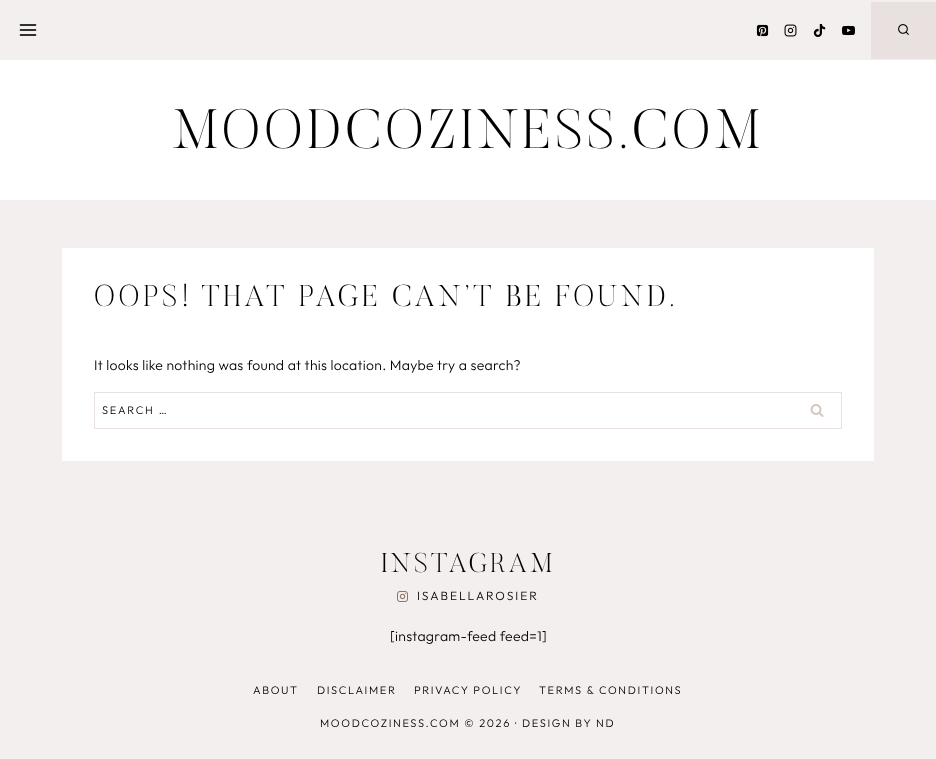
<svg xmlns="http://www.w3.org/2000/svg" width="936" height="759">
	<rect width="100%" height="100%" fill="#F3EFEE" />
	<rect x="0" y="60" width="936" height="140" fill="#FFFFFF" />
	<image x="19" y="24" width="18" height="12" href="assets/img1.png" />
	<image x="756" y="24" width="13" height="13" href="assets/img2.png" />
	<image x="784" y="24" width="13" height="13" href="assets/img3.png" />
	<image x="813" y="24" width="13" height="13" href="assets/img4.png" />
	<image x="842" y="25" width="13" height="11" href="assets/img5.png" />
	<rect x="871" y="2" width="65" height="57" fill="#E8E1DF" />
	<image x="898" y="24" width="11" height="11" href="assets/img6.png" />
	<text x="172" y="148" font-family="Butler" font-size="55" font-weight="200" letter-spacing="4" fill="#000000">MOODCOZINESS.COM</text>
	<rect x="62" y="248" width="812" height="213" fill="#FFFFFF" />
	<text x="94" y="306" font-family="Butler" font-size="30" font-weight="200" letter-spacing="3.6" fill="#000000">OOPS! THAT PAGE CAN’T BE FOUND.</text>
	<text x="94" y="370" font-family="Outfit" font-size="14" font-weight="300" letter-spacing="0.28" fill="#000000">It looks like nothing was found at this location. Maybe try a search?</text>
	<rect x="94.5" y="392.5" width="747" height="36" fill="none" stroke="#E8E1DF" />
	<text x="102" y="414" font-family="Outfit" font-size="11" font-weight="300" letter-spacing="1.75" fill="#000000">SEARCH …</text>
	<image x="810" y="404" width="14" height="13" href="assets/img7.png" />
	<text x="381" y="572" font-family="Butler" font-size="27" font-weight="200" letter-spacing="3.25" fill="#000000">INSTAGRAM</text>
	<image x="397" y="591" width="11" height="11" href="assets/img8.png" />
	<text x="417" y="600" font-family="Outfit" font-size="12" font-weight="300" letter-spacing="2" fill="#000000">ISABELLAROSIER</text>
	<text x="390" y="641" font-family="Outfit" font-size="14" font-weight="300" letter-spacing="0.28" fill="#000000">[instagram-feed feed=1]</text>
	<g font-family="Outfit" font-size="11" font-weight="300" letter-spacing="1.65" fill="#000000">
		<text x="253" y="694">ABOUT</text>
		<text x="317" y="694">DISCLAIMER</text>
		<text x="414" y="694">PRIVACY POLICY</text>
		<text x="539" y="694">TERMS &amp; CONDITIONS</text>
		<text x="320" y="727">MOODCOZINESS.COM © 2026 · DESIGN BY ND</text>
	</g>
</svg>
